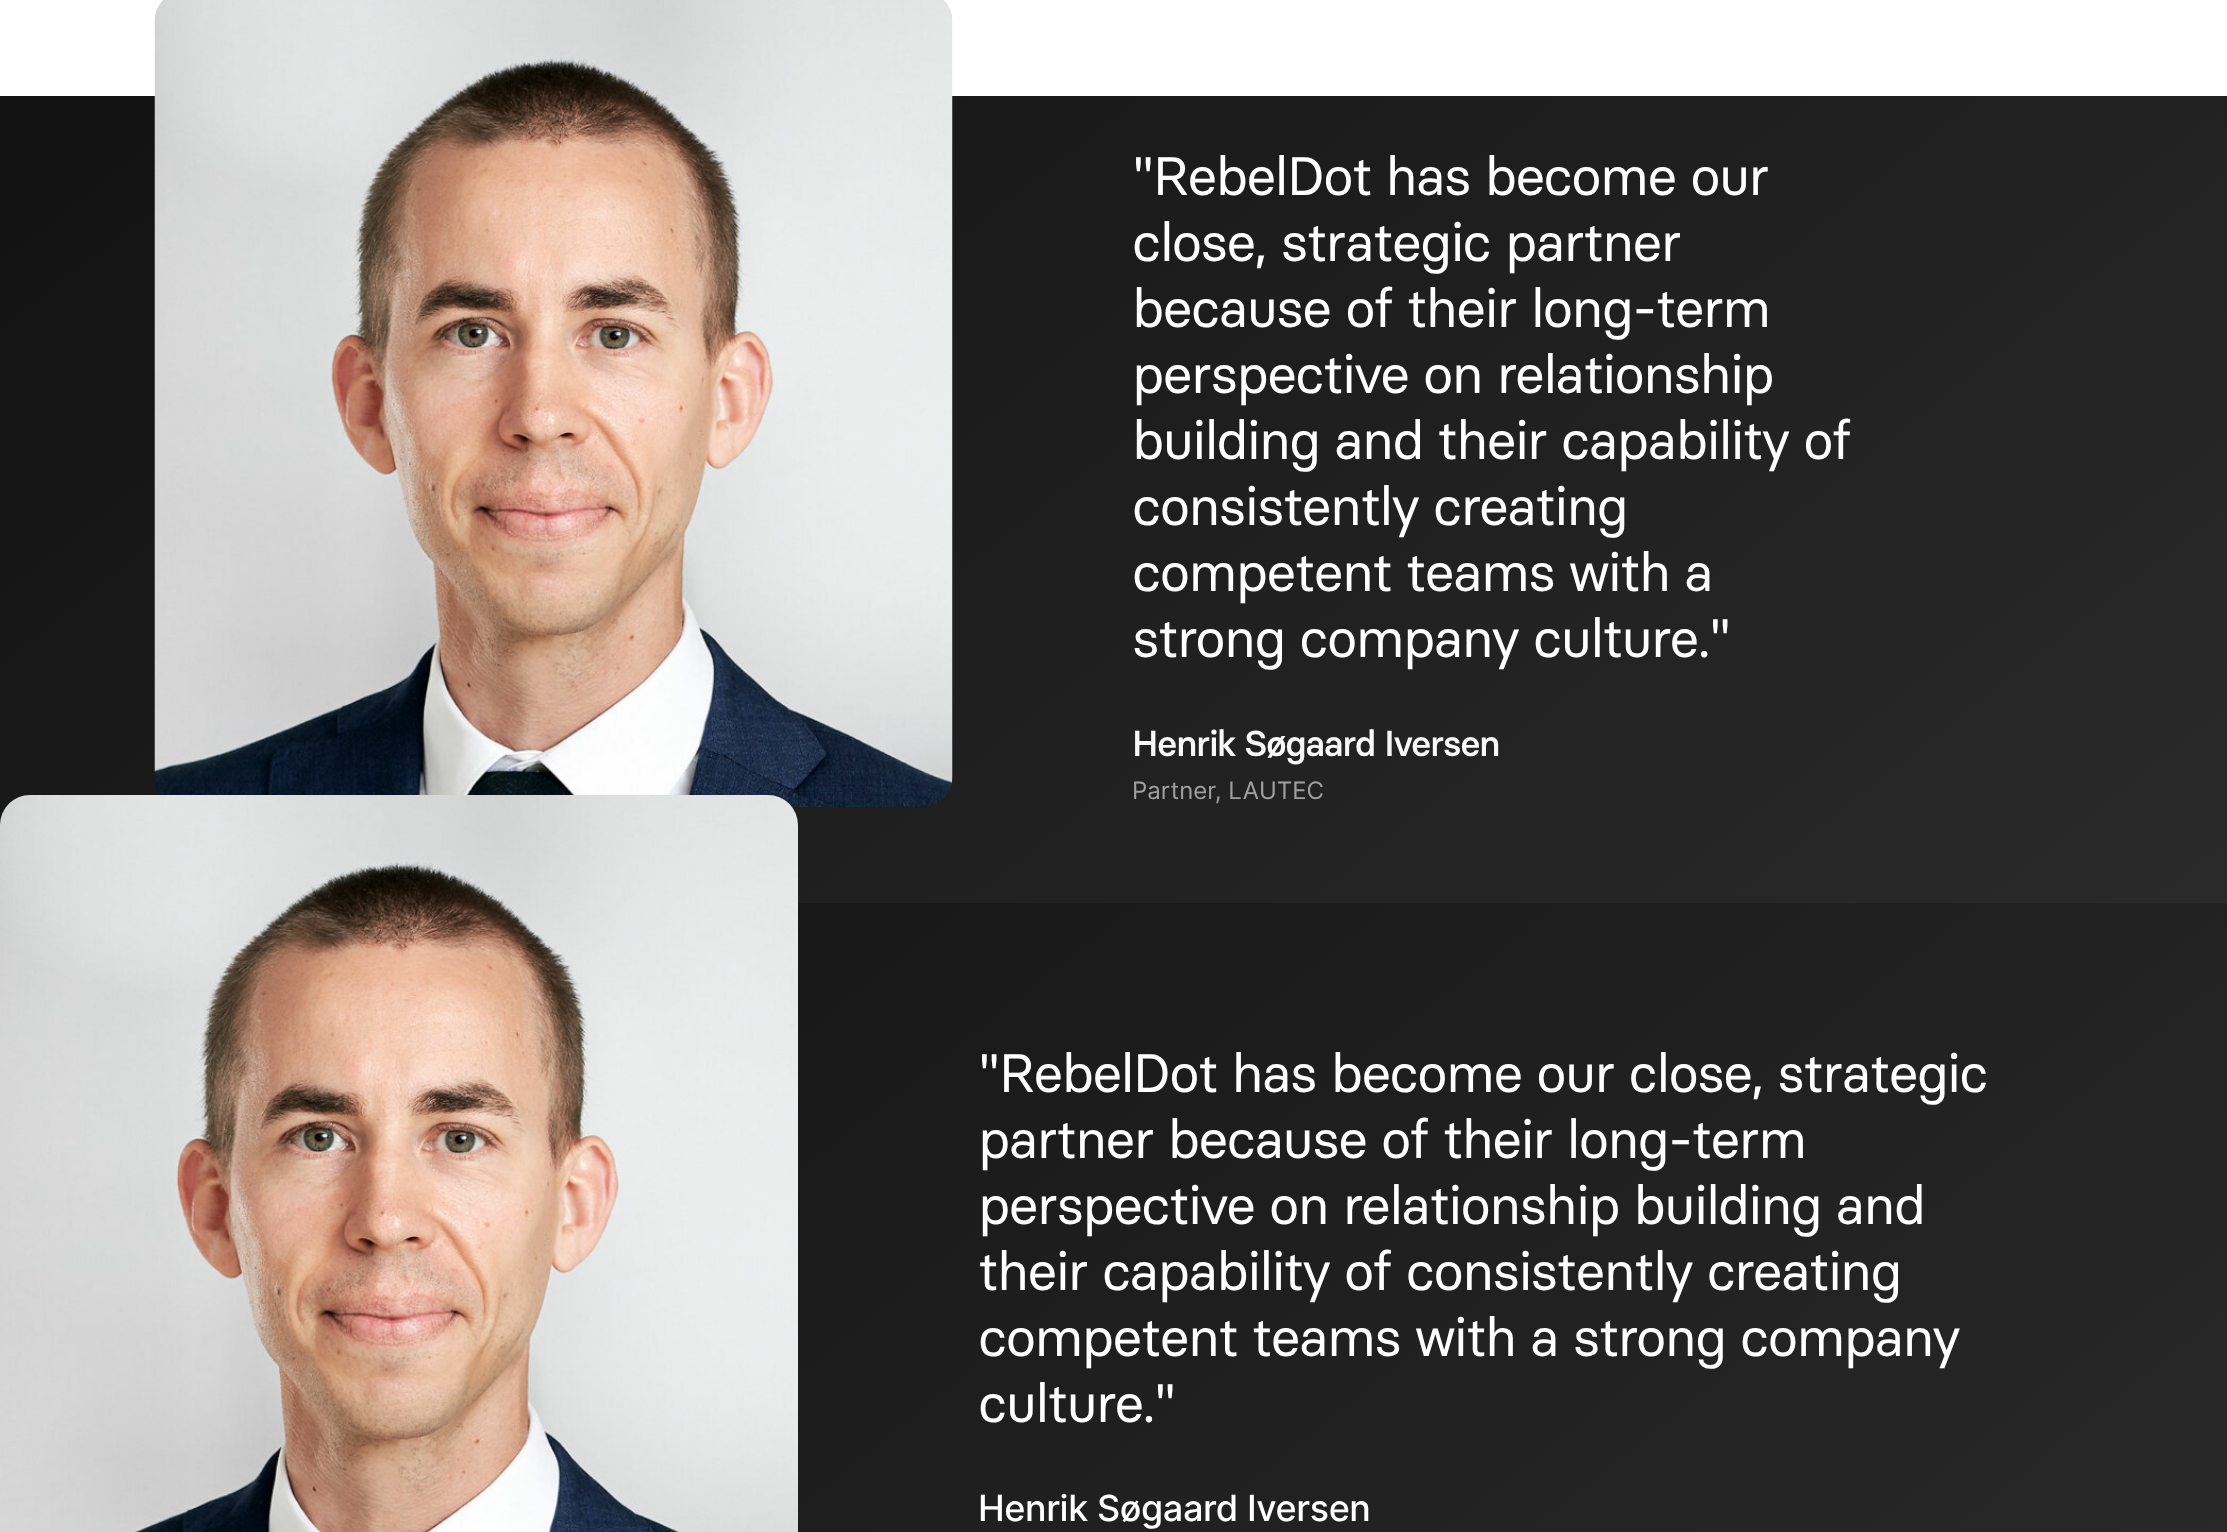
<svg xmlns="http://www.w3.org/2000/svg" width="2227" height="1532">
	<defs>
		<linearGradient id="g1" gradientUnits="userSpaceOnUse" x1="487" y1="-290" x2="1740" y2="1289"><stop offset="0" stop-color="#121212" /><stop offset="1" stop-color="#2A2A2A" /></linearGradient>
		<linearGradient id="g2" gradientUnits="userSpaceOnUse" x1="488" y1="516" x2="1739" y2="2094"><stop offset="0" stop-color="#121212" /><stop offset="1" stop-color="#2A2A2A" /></linearGradient>
	</defs>
	<rect width="100%" height="100%" fill="#FFFFFF" />
	<rect x="0" y="96" width="2227" height="807" fill="url(#g1)" />
	<image x="154" y="0" width="799" height="807" href="assets/img1.png" />
	<g font-family="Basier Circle" font-size="54" letter-spacing="-1.6" fill="#FFFFFF">
		<text x="1132" y="195">"RebelDot has become our</text>
		<text x="1132" y="261">close, strategic partner</text>
		<text x="1132" y="327">because of their long-term</text>
		<text x="1132" y="393">perspective on relationship</text>
		<text x="1132" y="459">building and their capability of</text>
		<text x="1132" y="525">consistently creating</text>
		<text x="1132" y="591">competent teams with a</text>
		<text x="1132" y="657">strong company culture."</text>
	</g>
	<text x="1132" y="756" font-family="Basier Circle" font-size="36" font-weight="500" letter-spacing="-1.1" fill="#F8F8F8">Henrik Søgaard Iversen</text>
	<text x="1132" y="799" font-family="Inter" font-size="24" fill="#A0A0A0">Partner, LAUTEC</text>
	<rect x="798" y="903" width="1429" height="629" fill="url(#g2)" />
	<image x="0" y="795" width="798" height="737" href="assets/img2.png" />
	<g font-family="Basier Circle" font-size="54" letter-spacing="-1.6" fill="#FFFFFF">
		<text x="978" y="1092">"RebelDot has become our close, strategic</text>
		<text x="978" y="1158">partner because of their long-term</text>
		<text x="978" y="1224">perspective on relationship building and</text>
		<text x="978" y="1290">their capability of consistently creating</text>
		<text x="978" y="1356">competent teams with a strong company</text>
		<text x="978" y="1422">culture."</text>
	</g>
	<text x="978" y="1521" font-family="Inter" font-size="36" font-weight="500" letter-spacing="-0.4" fill="#FFFFFF">Henrik Søgaard Iversen</text>
</svg>
